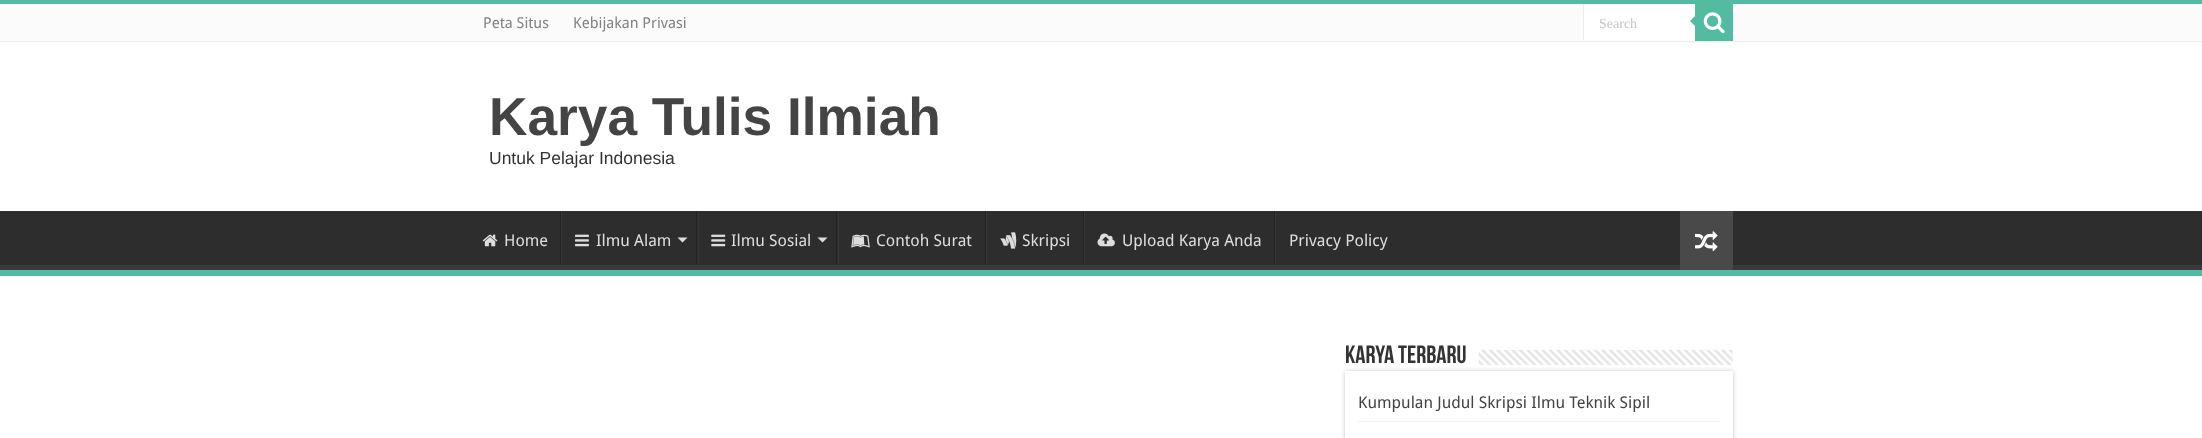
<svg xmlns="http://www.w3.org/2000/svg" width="2202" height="438">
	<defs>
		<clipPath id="clip1"><rect x="0" y="211" width="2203" height="59" /></clipPath>
	</defs>
	<rect width="100%" height="100%" fill="#FFFFFF" />
	<rect x="0" y="0" width="2202" height="4" fill="#52BBA1" />
	<rect x="0" y="4" width="2202" height="39" fill="#FBFBFB" />
	<rect x="0" y="41" width="2202" height="1" fill="#ECECEC" />
	<g font-family="Droid Sans" font-size="15" fill="#838383">
		<text x="483" y="28">Peta Situs</text>
		<text x="573" y="28">Kebijakan Privasi</text>
	</g>
	<rect x="1584" y="4" width="111" height="36" fill="#FFFFFF" />
	<rect x="1583" y="4" width="1" height="36" fill="#ECECEC" />
	<text x="1599" y="28" font-family="Liberation Serif" font-size="14" fill="#C5C5C5">Search</text>
	<rect x="1695" y="4" width="38" height="37" fill="#52BBA1" />
	<image x="1703" y="12" width="22" height="22" href="assets/img1.png" />
	<path d="M1695 16V26L1690 21Z" fill="#52BBA1" />
	<text x="489" y="135" font-family="Liberation Sans" font-size="53.25" font-weight="700" fill="#444444">Karya Tulis Ilmiah</text>
	<text x="489" y="164" font-family="Liberation Sans" font-size="17.5" fill="#333333">Untuk Pelajar Indonesia</text>
	<rect x="0" y="211" width="2202" height="54" fill="#2D2D2D" />
	<g clip-path="url(#clip1)">
		<path d="M-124 88H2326V394H-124ZM-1 204H2201C2202 204 2202 204 2202 205V264C2202 264 2202 265 2201 265H-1C-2 265-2 264-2 264V205C-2 204-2 204-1 204Z" fill="#393939" fill-rule="evenodd" />
	</g>
	<rect x="0" y="270" width="2202" height="6" fill="#52BBA1" />
	<image x="482" y="234" width="16" height="13" href="assets/img2.png" />
	<text x="504" y="246" font-family="Droid Sans" font-size="16.25" fill="#DDDDDD">Home</text>
	<rect x="560" y="211" width="1" height="53" fill="#222222" />
	<rect x="561" y="211" width="1" height="53" fill="#383838" />
	<image x="575" y="234" width="14" height="13" href="assets/img3.png" />
	<text x="596" y="246" font-family="Droid Sans" font-size="16.25" fill="#DDDDDD">Ilmu Alam</text>
	<path d="M677.5 237.5H687.5L682.5 242.5Z" fill="#DDDDDD" />
	<rect x="696" y="211" width="1" height="53" fill="#222222" />
	<rect x="698" y="211" width="1" height="53" fill="#383838" />
	<image x="711" y="234" width="15" height="13" href="assets/img4.png" />
	<text x="731" y="246" font-family="Droid Sans" font-size="16.25" fill="#DDDDDD">Ilmu Sosial</text>
	<path d="M817.5 237.5H827.5L822.5 242.5Z" fill="#DDDDDD" />
	<rect x="836" y="211" width="1" height="53" fill="#222222" />
	<rect x="838" y="211" width="1" height="53" fill="#383838" />
	<image x="851" y="234" width="19" height="14" href="assets/img5.png" />
	<text x="876" y="246" font-family="Droid Sans" font-size="16.25" fill="#DDDDDD">Contoh Surat</text>
	<rect x="985" y="211" width="1" height="53" fill="#222222" />
	<rect x="986" y="211" width="1" height="53" fill="#383838" />
	<image x="1000" y="232" width="17" height="17" href="assets/img6.png" />
	<text x="1022" y="246" font-family="Droid Sans" font-size="16.25" fill="#DDDDDD">Skripsi</text>
	<rect x="1083" y="211" width="1" height="53" fill="#222222" />
	<rect x="1084" y="211" width="1" height="53" fill="#383838" />
	<image x="1097" y="233" width="18" height="14" href="assets/img7.png" />
	<text x="1122" y="246" font-family="Droid Sans" font-size="16.25" fill="#DDDDDD">Upload Karya Anda</text>
	<rect x="1274" y="211" width="1" height="53" fill="#222222" />
	<rect x="1275" y="211" width="1" height="53" fill="#383838" />
	<text x="1289" y="246" font-family="Droid Sans" font-size="16.25" fill="#DDDDDD">Privacy Policy</text>
	<rect x="1680" y="211" width="53" height="59" fill="#494949" />
	<image x="1695" y="231" width="23" height="21" href="assets/img8.png" />
	<text x="1345" y="363" font-family="Bebas Neue" font-size="25" font-weight="700" fill="#333333">Karya Terbaru</text>
	<rect x="1345" y="371" width="388" height="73" fill="#CACACA" filter="blur(2px)" />
	<image x="1478" y="350" width="255" height="15" href="assets/img9.png" />
	<rect x="1345" y="371" width="388" height="67" fill="#FFFFFF" />
	<rect x="1358" y="421" width="362" height="1" fill="#F2F2F2" />
	<text x="1358" y="408" font-family="Droid Sans" font-size="16.25" fill="#444444">Kumpulan Judul Skripsi Ilmu Teknik Sipil</text>
</svg>
